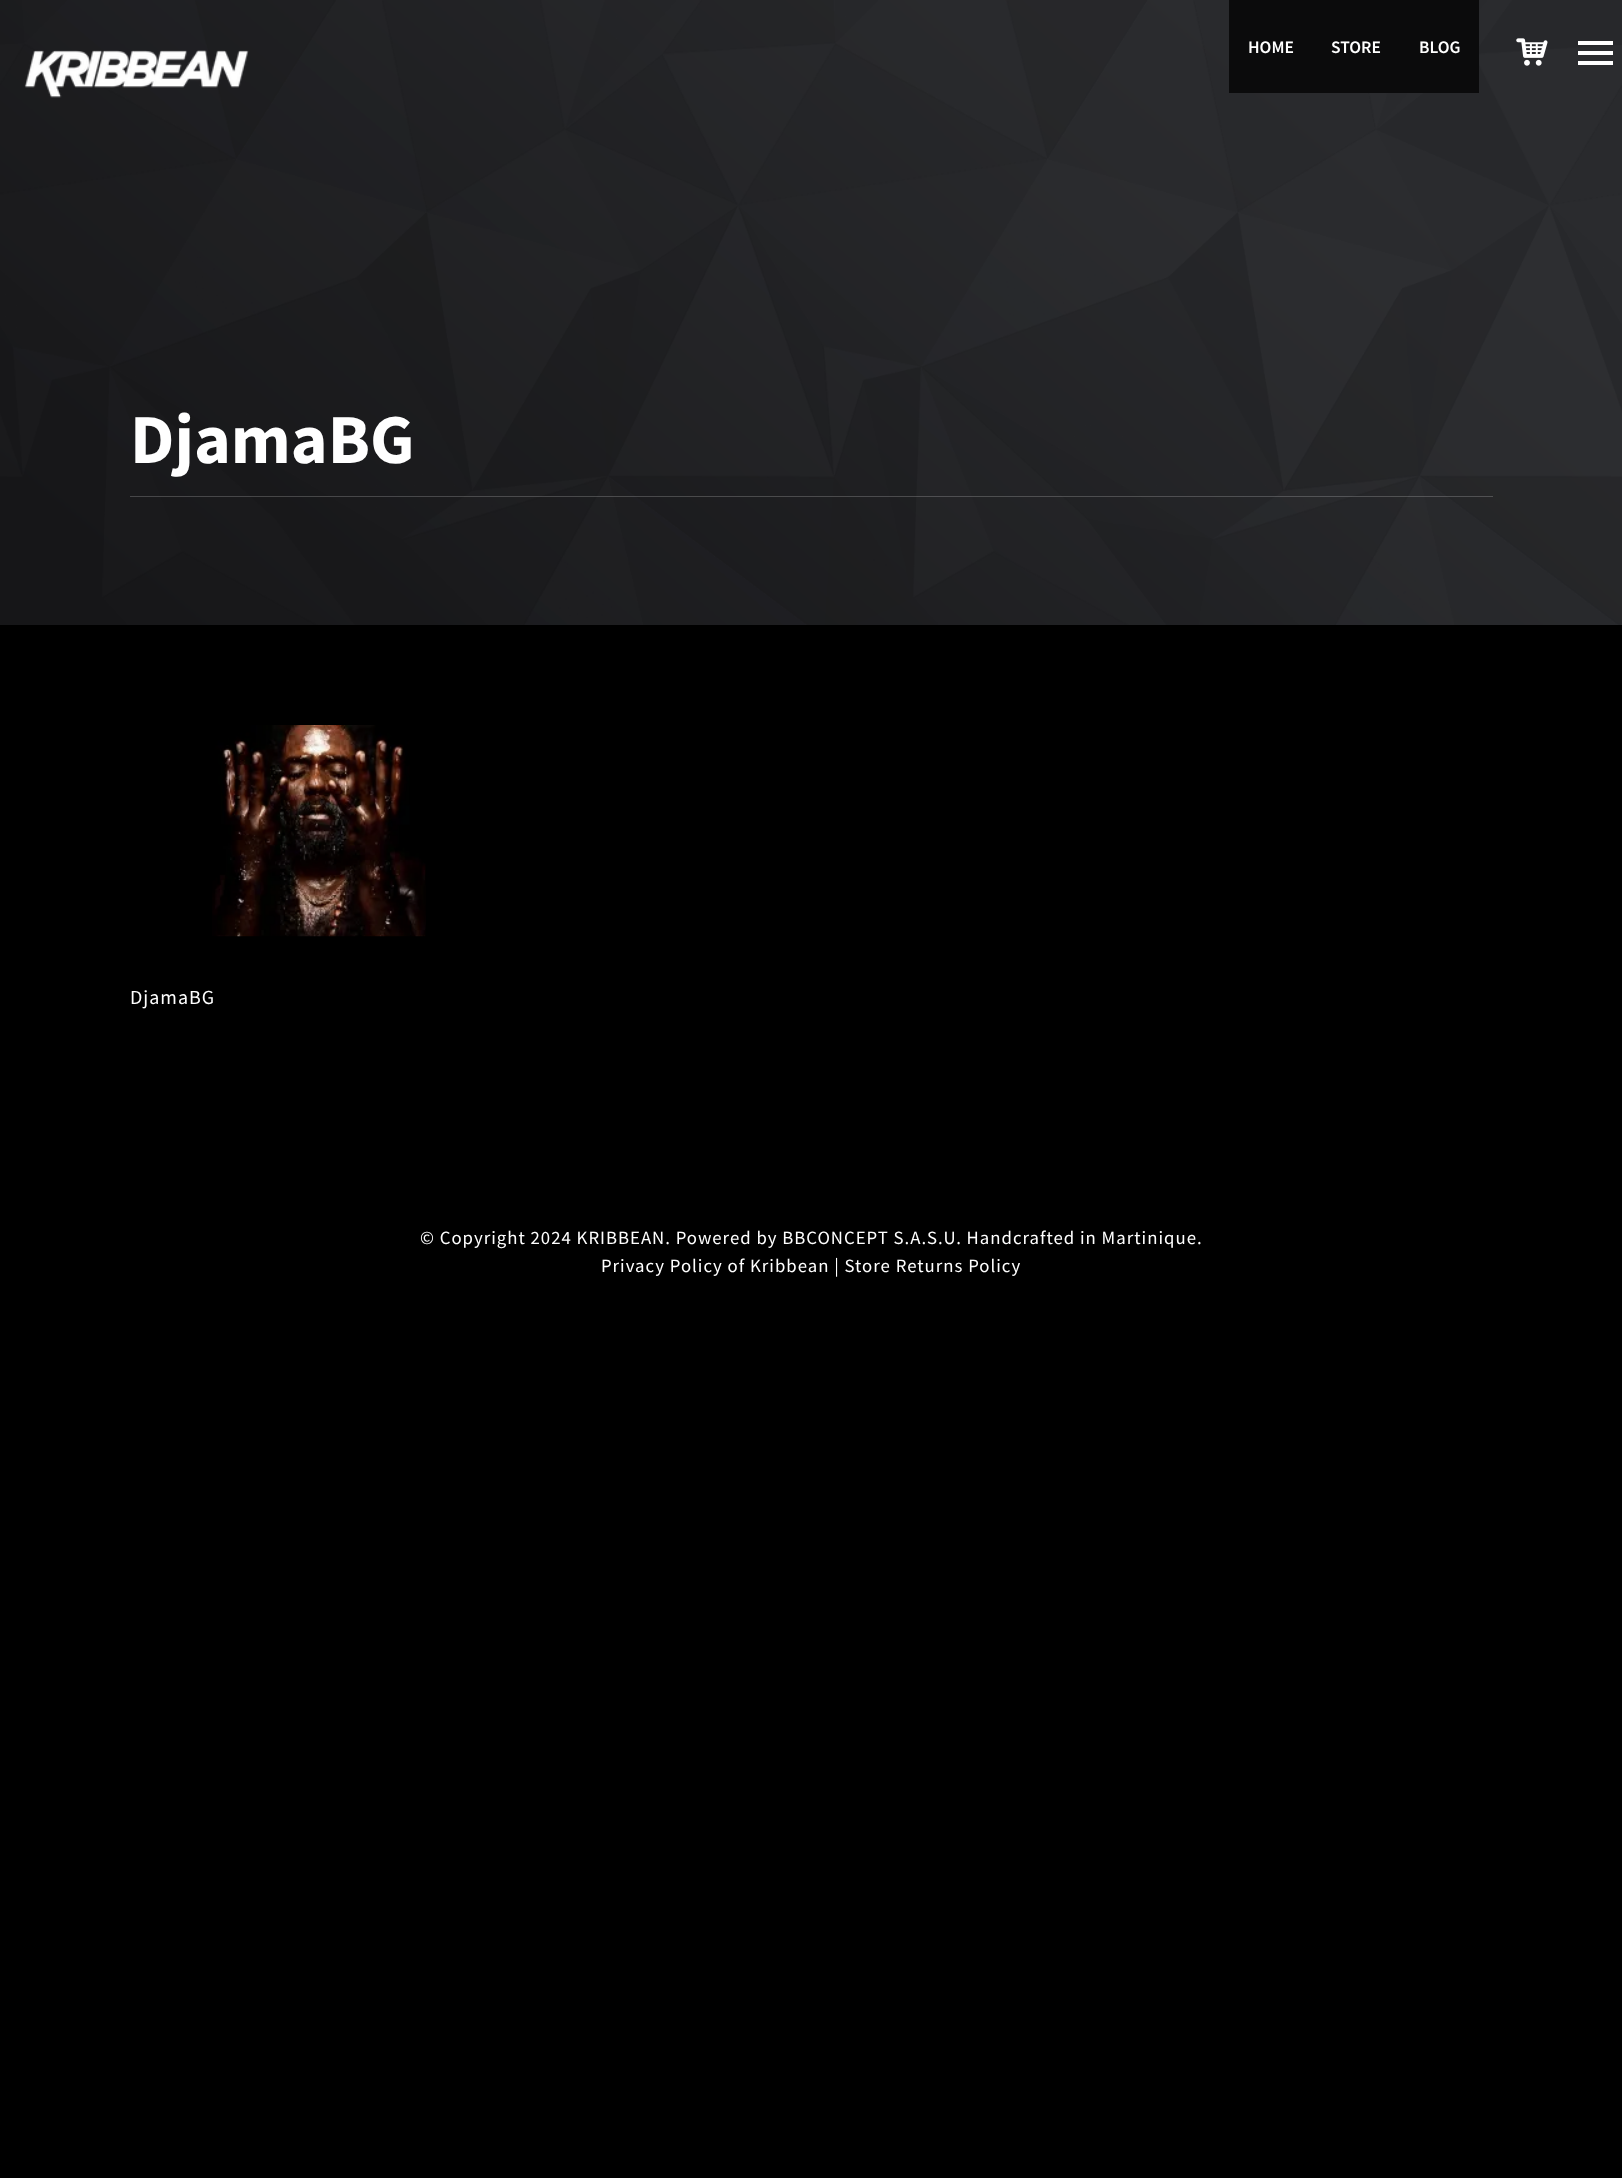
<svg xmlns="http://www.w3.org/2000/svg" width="1622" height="2178">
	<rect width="100%" height="100%" fill="#000000" />
	<image x="0" y="0" width="1622" height="625" href="assets/img3.png" />
	<rect x="1229" y="0" width="250" height="93" fill="#0B0B0C" />
	<g font-family="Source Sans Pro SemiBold" font-size="17.5" font-weight="600" fill="#FFFFFF">
		<text x="1248" y="53">HOME</text>
		<text x="1331" y="53">STORE</text>
		<text x="1419" y="53">BLOG</text>
	</g>
	<image x="1516" y="38" width="32" height="28" href="assets/img1.png" />
	<rect x="1578" y="51" width="35" height="4" fill="#FFFFFF" />
	<rect x="1578" y="41" width="35" height="4" fill="#FFFFFF" />
	<rect x="1578" y="61" width="35" height="4" fill="#FFFFFF" />
	<image x="24" y="50" width="225" height="48" href="assets/img2.png" />
	<text x="130" y="463" font-family="Source Sans Pro" font-size="70" font-weight="700" fill="#FFFFFF">DjamaBG</text>
	<rect x="130" y="496" width="1363" height="1" fill="#FFFFFF" fill-opacity="0.2" />
	<image x="212" y="725" width="214" height="212" href="assets/img4.png" />
	<text x="130" y="1004" font-family="Source Sans Pro" font-size="20" letter-spacing="1" fill="#FFFFFF">DjamaBG</text>
	<g font-family="Source Sans Pro" font-size="18.75" letter-spacing="1" fill="#FFFFFF">
		<text x="420" y="1244">© Copyright 2024 KRIBBEAN. Powered by BBCONCEPT S.A.S.U. Handcrafted in Martinique.</text>
		<text x="601" y="1272">Privacy Policy of Kribbean | Store Returns Policy</text>
	</g>
</svg>
